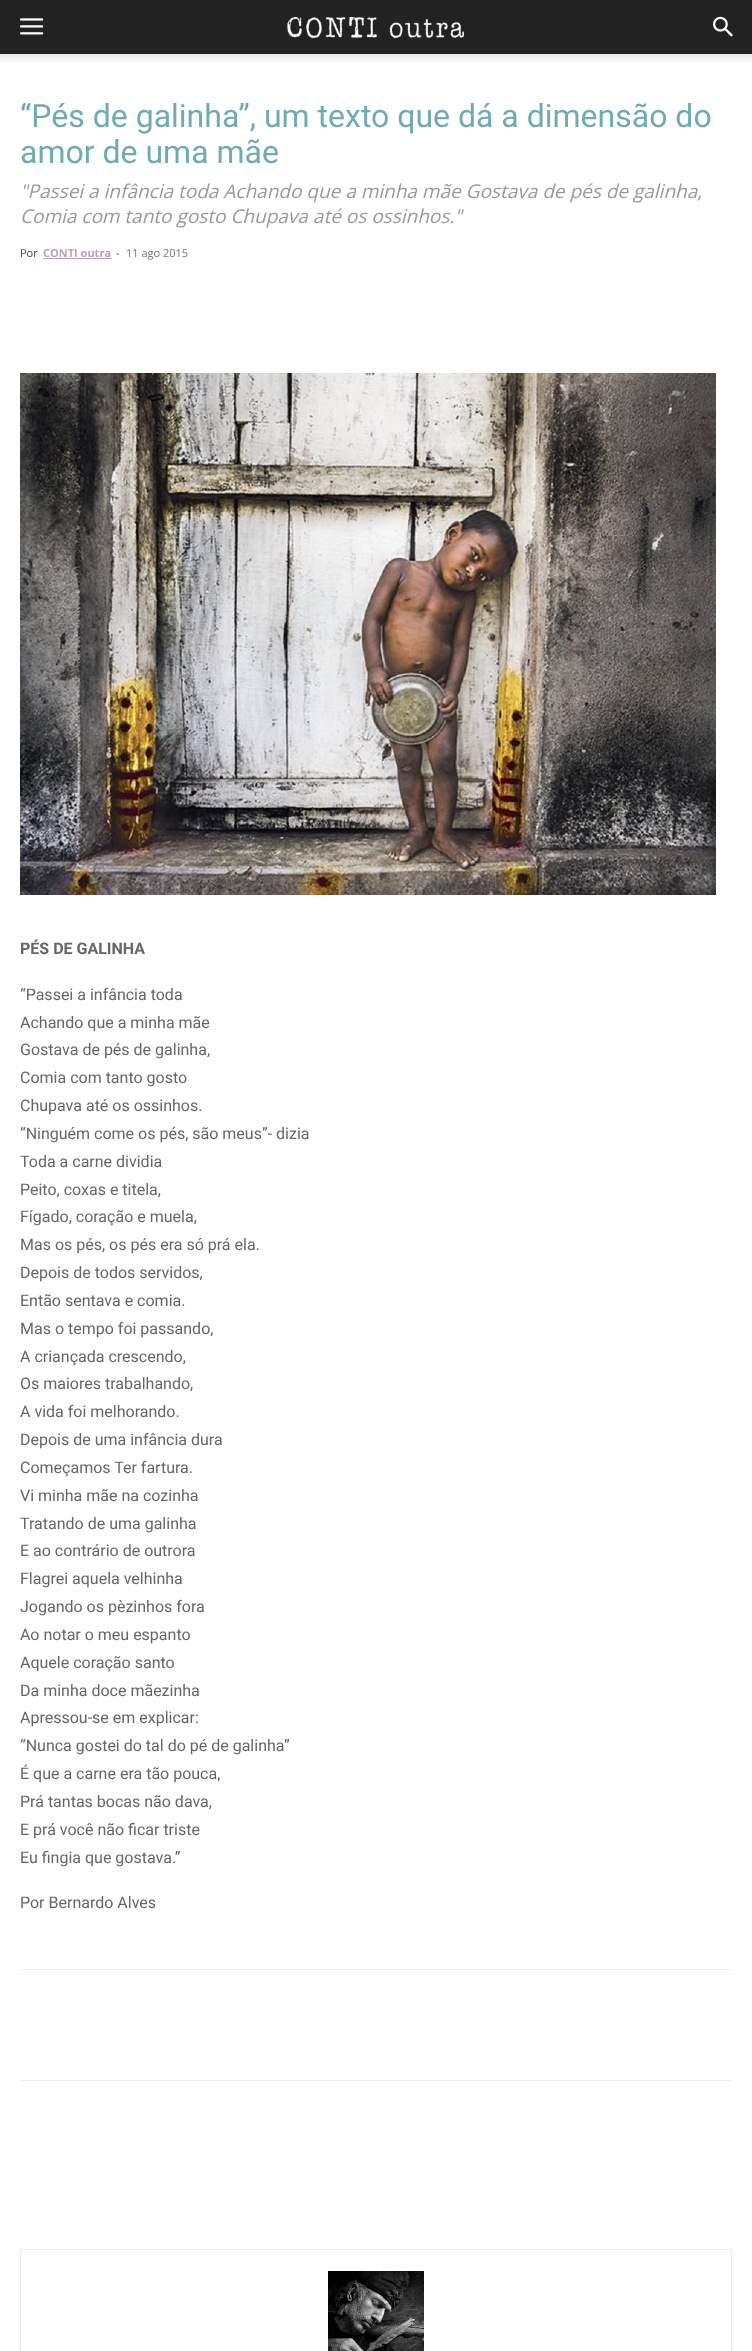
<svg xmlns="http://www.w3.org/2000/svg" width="752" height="2351">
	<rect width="100%" height="100%" fill="#FFFFFF" />
	<rect x="0" y="0" width="752" height="54" fill="#222222" />
	<image x="20" y="18" width="24" height="17" href="assets/img1.png" />
	<image x="287" y="17" width="177" height="22" href="assets/img2.png" />
	<image x="713" y="16" width="20" height="21" href="assets/img3.png" />
	<image x="0" y="54" width="752" height="9" href="assets/img4.png" />
	<g font-family="Roboto" font-size="32" fill="#70ABB1">
		<text x="20" y="127">“Pés de galinha”, um texto que dá a dimensão do</text>
		<text x="20" y="163">amor de uma mãe</text>
	</g>
	<g font-family="Open Sans" font-size="19" font-style="italic" fill="#999999">
		<text x="20" y="198">"Passei a infância toda Achando que a minha mãe Gostava de pés de galinha,</text>
		<text x="20" y="223">Comia com tanto gosto Chupava até os ossinhos."</text>
	</g>
	<text x="20" y="257" font-family="Open Sans" font-size="11" fill="#444444">Por</text>
	<text x="43" y="257" font-family="Open Sans" font-size="11" font-weight="700" fill="#BC9FBB">CONTI outra</text>
	<rect x="43" y="258" width="68" height="1" fill="#BC9FBB" />
	<text x="116" y="257" font-family="Open Sans" font-size="11" fill="#444444">-</text>
	<text x="126" y="257" font-family="Open Sans" font-size="11" fill="#767676">11 ago 2015</text>
	<image x="20" y="373" width="696" height="522" href="assets/img5.png" />
	<text x="20" y="954" font-family="Roboto" font-size="16" font-weight="700" fill="#666666">PÉS DE GALINHA</text>
	<g font-family="Roboto" font-size="16" fill="#666666">
		<text x="20" y="1000">“Passei a infância toda</text>
		<text x="20" y="1028">Achando que a minha mãe</text>
		<text x="20" y="1055">Gostava de pés de galinha,</text>
		<text x="20" y="1083">Comia com tanto gosto</text>
		<text x="20" y="1111">Chupava até os ossinhos.</text>
		<text x="20" y="1139">“Ninguém come os pés, são meus”- dizia</text>
		<text x="20" y="1167">Toda a carne dividia</text>
		<text x="20" y="1195">Peito, coxas e titela,</text>
		<text x="20" y="1222">Fígado, coração e muela,</text>
		<text x="20" y="1250">Mas os pés, os pés era só prá ela.</text>
		<text x="20" y="1278">Depois de todos servidos,</text>
		<text x="20" y="1306">Então sentava e comia.</text>
		<text x="20" y="1334">Mas o tempo foi passando,</text>
		<text x="20" y="1362">A criançada crescendo,</text>
		<text x="20" y="1389">Os maiores trabalhando,</text>
		<text x="20" y="1417">A vida foi melhorando.</text>
		<text x="20" y="1445">Depois de uma infância dura</text>
		<text x="20" y="1473">Começamos Ter fartura.</text>
		<text x="20" y="1501">Vi minha mãe na cozinha</text>
		<text x="20" y="1529">Tratando de uma galinha</text>
		<text x="20" y="1556">E ao contrário de outrora</text>
		<text x="20" y="1584">Flagrei aquela velhinha</text>
		<text x="20" y="1612">Jogando os pèzinhos fora</text>
		<text x="20" y="1640">Ao notar o meu espanto</text>
		<text x="20" y="1668">Aquele coração santo</text>
		<text x="20" y="1696">Da minha doce mãezinha</text>
		<text x="20" y="1723">Apressou-se em explicar:</text>
		<text x="20" y="1751">“Nunca gostei do tal do pé de galinha”</text>
		<text x="20" y="1779">É que a carne era tão pouca,</text>
		<text x="20" y="1807">Prá tantas bocas não dava,</text>
		<text x="20" y="1835">E prá você não ficar triste</text>
		<text x="20" y="1863">Eu fingia que gostava.”</text>
		<text x="20" y="1908">Por Bernardo Alves</text>
	</g>
	<rect x="20" y="1969" width="712" height="1" fill="#EDEDED" />
	<rect x="20" y="2080" width="712" height="1" fill="#EDEDED" />
	<rect x="20.5" y="2249.5" width="711" height="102" fill="none" stroke="#EDEDED" />
	<image x="328" y="2271" width="96" height="80" href="assets/img6.png" />
</svg>
